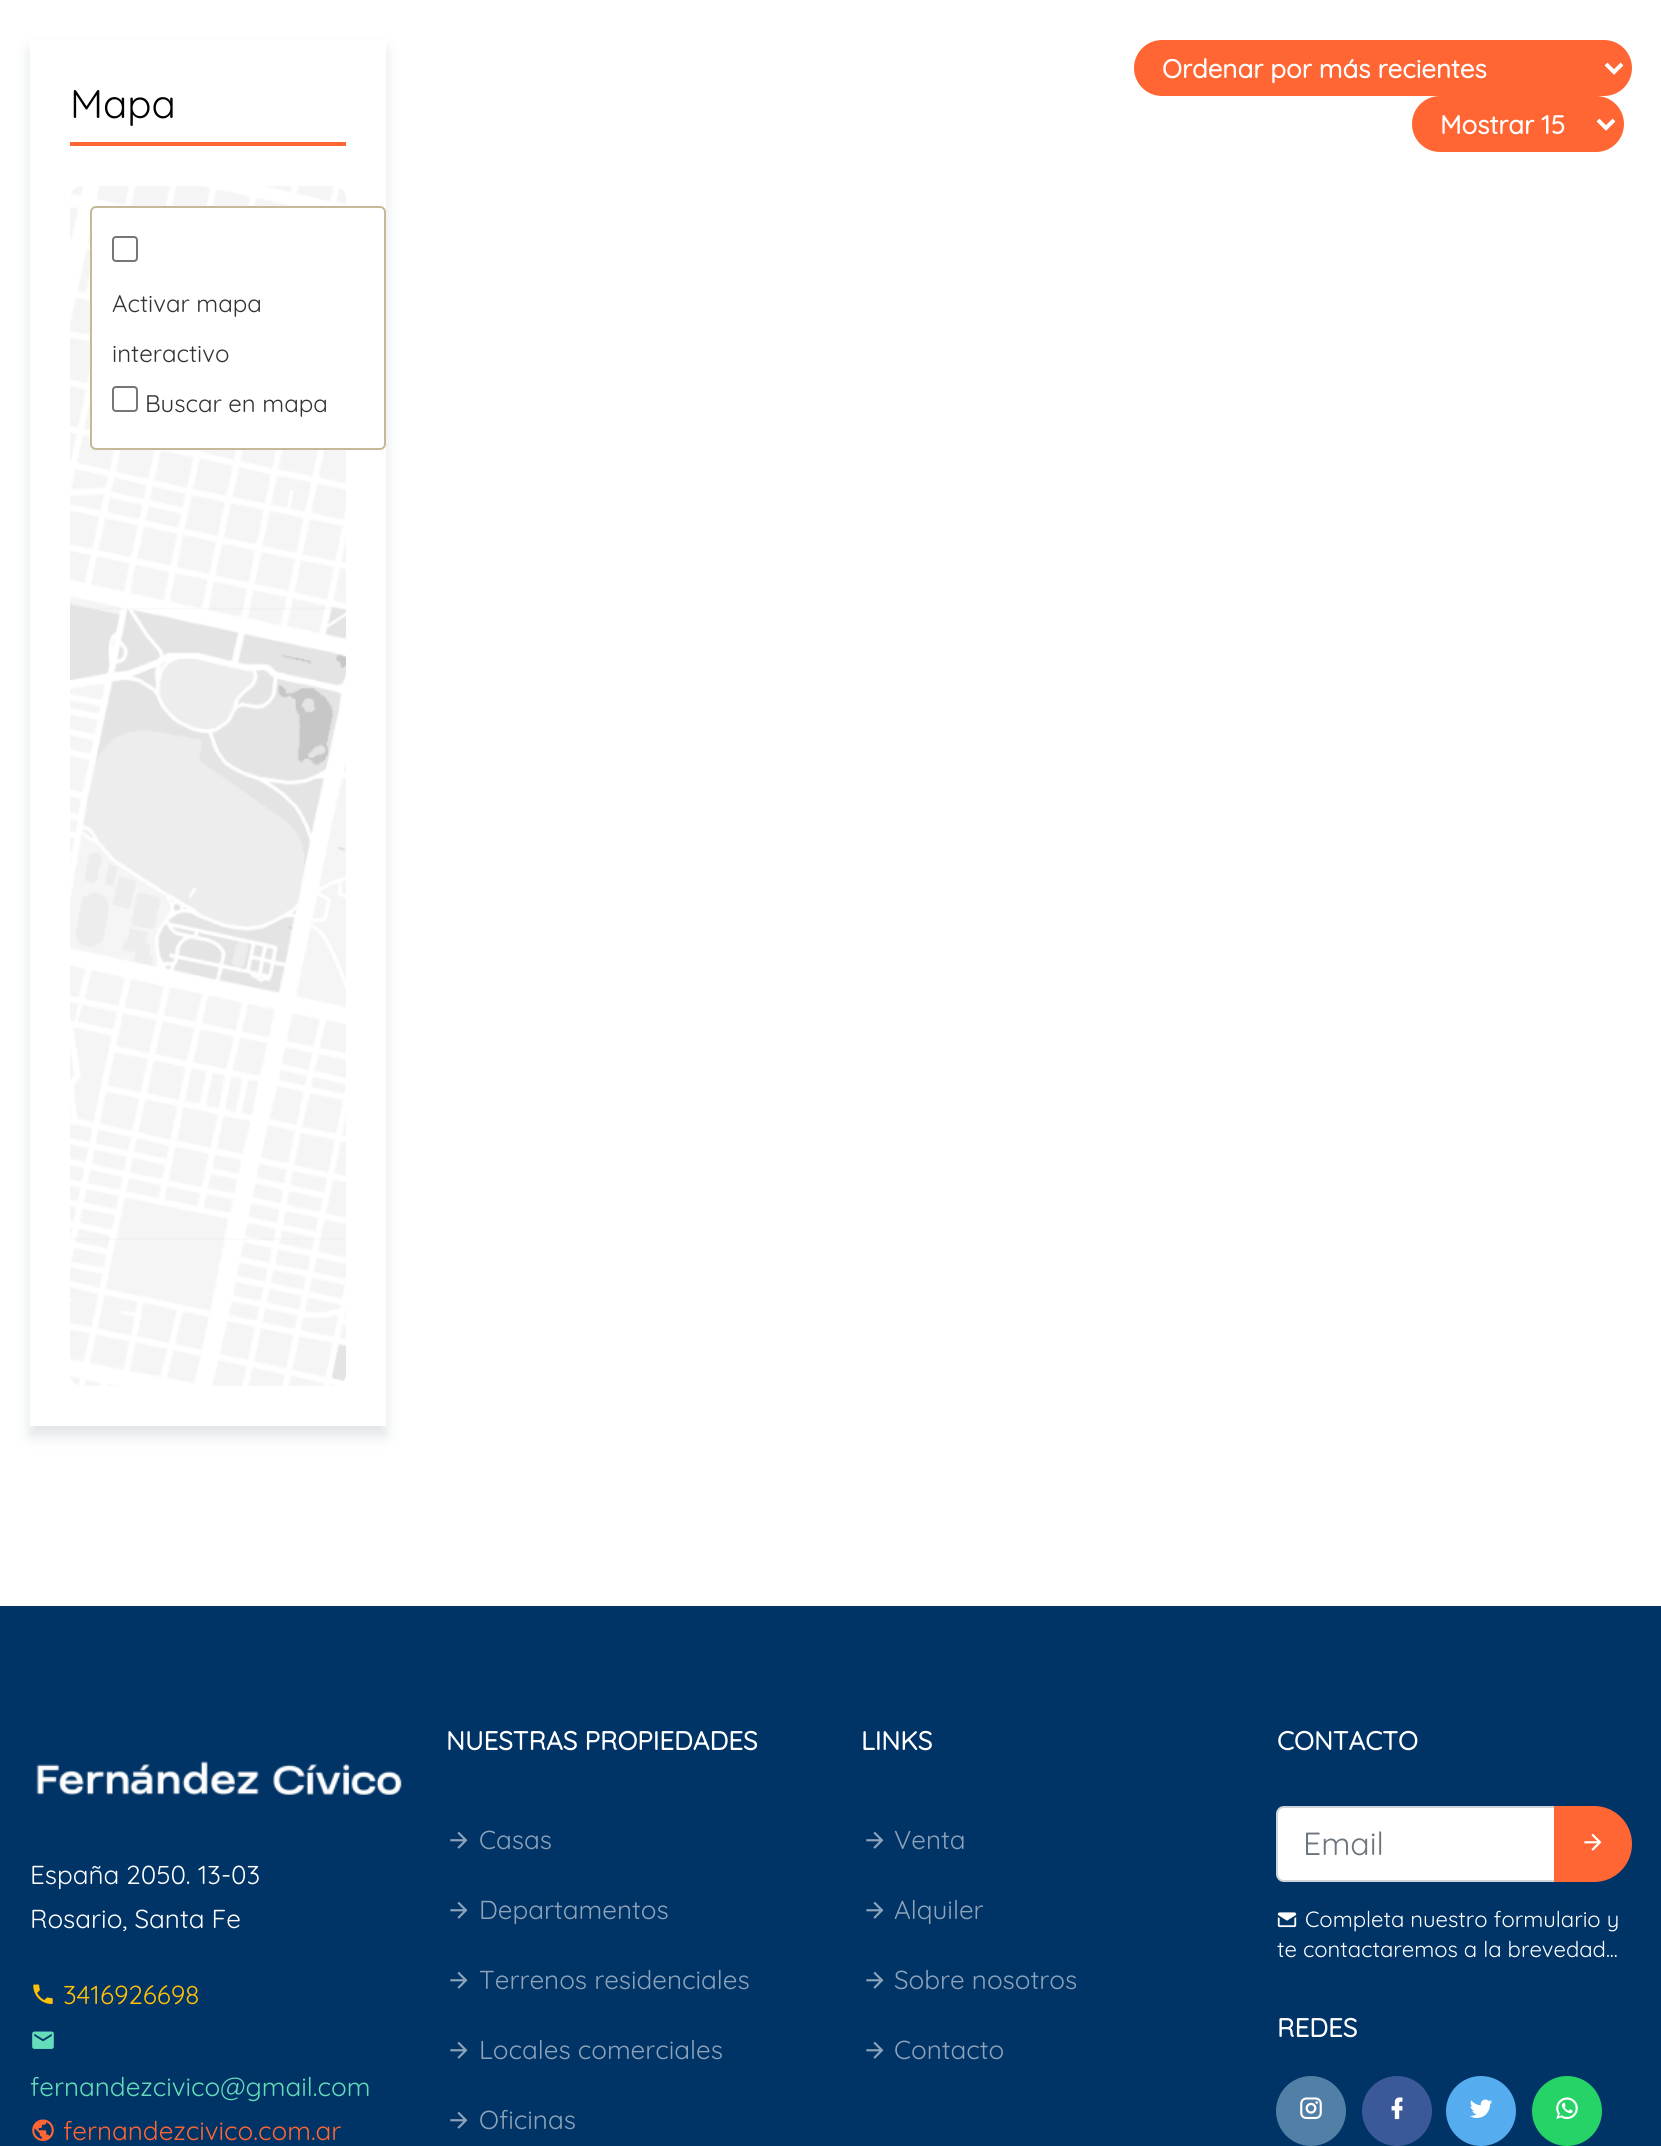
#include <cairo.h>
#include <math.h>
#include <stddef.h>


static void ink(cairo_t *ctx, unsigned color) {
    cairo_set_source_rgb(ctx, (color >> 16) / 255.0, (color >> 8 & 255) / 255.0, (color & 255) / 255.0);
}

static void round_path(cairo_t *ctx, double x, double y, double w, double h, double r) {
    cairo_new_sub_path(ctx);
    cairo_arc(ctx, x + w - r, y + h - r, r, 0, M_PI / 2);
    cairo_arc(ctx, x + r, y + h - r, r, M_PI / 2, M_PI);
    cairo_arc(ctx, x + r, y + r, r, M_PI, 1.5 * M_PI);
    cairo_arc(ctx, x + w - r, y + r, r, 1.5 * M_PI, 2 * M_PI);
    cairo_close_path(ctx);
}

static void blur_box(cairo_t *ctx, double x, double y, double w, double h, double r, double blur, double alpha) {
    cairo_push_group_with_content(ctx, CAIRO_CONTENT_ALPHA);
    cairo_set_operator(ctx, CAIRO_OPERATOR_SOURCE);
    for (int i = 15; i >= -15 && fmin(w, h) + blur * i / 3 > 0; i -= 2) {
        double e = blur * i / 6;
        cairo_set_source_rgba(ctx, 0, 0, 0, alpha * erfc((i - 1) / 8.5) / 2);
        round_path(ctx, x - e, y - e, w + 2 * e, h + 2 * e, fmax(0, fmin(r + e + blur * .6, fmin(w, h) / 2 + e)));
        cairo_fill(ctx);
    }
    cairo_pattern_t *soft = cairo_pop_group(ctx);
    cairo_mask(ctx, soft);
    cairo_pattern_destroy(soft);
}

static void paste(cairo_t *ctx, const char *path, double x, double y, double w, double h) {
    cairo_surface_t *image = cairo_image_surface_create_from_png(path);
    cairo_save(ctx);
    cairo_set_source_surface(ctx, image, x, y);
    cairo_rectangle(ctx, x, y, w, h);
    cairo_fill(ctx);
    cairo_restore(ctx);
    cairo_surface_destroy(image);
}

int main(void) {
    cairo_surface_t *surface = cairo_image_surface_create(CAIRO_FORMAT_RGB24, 1661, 2146);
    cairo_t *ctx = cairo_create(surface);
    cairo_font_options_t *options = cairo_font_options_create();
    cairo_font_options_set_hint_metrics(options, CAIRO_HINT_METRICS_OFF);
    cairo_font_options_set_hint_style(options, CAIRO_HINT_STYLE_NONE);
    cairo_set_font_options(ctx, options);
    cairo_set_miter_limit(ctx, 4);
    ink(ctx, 0xFFFFFF);
    cairo_paint(ctx);
    cairo_save(ctx);
    cairo_set_fill_rule(ctx, CAIRO_FILL_RULE_EVEN_ODD);
    cairo_new_path(ctx);
    cairo_move_to(ctx, 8, 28);
    cairo_line_to(ctx, 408, 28);
    cairo_line_to(ctx, 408, 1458);
    cairo_line_to(ctx, 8, 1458);
    cairo_close_path(ctx);
    cairo_move_to(ctx, 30, 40);
    cairo_line_to(ctx, 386, 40);
    cairo_line_to(ctx, 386, 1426);
    cairo_line_to(ctx, 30, 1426);
    cairo_close_path(ctx);
    cairo_clip(ctx);
    ink(ctx, 0xE0E5E8);
    blur_box(ctx, 30, 50, 356, 1386, 0, 7, 1);
    cairo_restore(ctx);
    ink(ctx, 0xFF6633);
    cairo_rectangle(ctx, 70, 142, 276, 4);
    cairo_fill(ctx);
    cairo_select_font_face(ctx, "Quicksand Light", CAIRO_FONT_SLANT_NORMAL, CAIRO_FONT_WEIGHT_NORMAL);
    cairo_set_font_size(ctx, 40);
    ink(ctx, 0x000000);
    cairo_move_to(ctx, 70, 118);
    cairo_show_text(ctx, "Mapa");
    paste(ctx, "media/1.png", 70, 186, 276, 1200);
    ink(ctx, 0xFFFFFF);
    round_path(ctx, 91, 207, 294, 242, 5);
    cairo_fill_preserve(ctx);
    ink(ctx, 0xC5B99A);
    cairo_stroke(ctx);
    round_path(ctx, 113, 237, 24, 24, 3);
    ink(ctx, 0x767676);
    cairo_stroke(ctx);
    cairo_set_font_size(ctx, 24);
    ink(ctx, 0x333333);
    cairo_move_to(ctx, 112, 312);
    cairo_show_text(ctx, "Activar mapa");
    cairo_move_to(ctx, 112, 362);
    cairo_show_text(ctx, "interactivo");
    round_path(ctx, 113, 387, 24, 24, 3);
    ink(ctx, 0x767676);
    cairo_stroke(ctx);
    ink(ctx, 0x333333);
    cairo_move_to(ctx, 145, 412);
    cairo_show_text(ctx, "Buscar en mapa");
    ink(ctx, 0xFF6633);
    round_path(ctx, 1135, 41, 496, 54, 27);
    cairo_fill_preserve(ctx);
    cairo_stroke(ctx);
    cairo_new_path(ctx);
    cairo_move_to(ctx, 1606, 64);
    cairo_line_to(ctx, 1614, 72);
    cairo_line_to(ctx, 1622, 64);
    ink(ctx, 0xFFFFFF);
    cairo_set_line_width(ctx, 4);
    cairo_stroke(ctx);
    cairo_select_font_face(ctx, "Quicksand", CAIRO_FONT_SLANT_NORMAL, CAIRO_FONT_WEIGHT_BOLD);
    cairo_set_font_size(ctx, 26);
    cairo_move_to(ctx, 1162, 78);
    cairo_show_text(ctx, "Ordenar por más recientes");
    ink(ctx, 0xFF6633);
    round_path(ctx, 1413, 97, 210, 54, 27);
    cairo_fill_preserve(ctx);
    cairo_set_line_width(ctx, 2);
    cairo_stroke(ctx);
    cairo_new_path(ctx);
    cairo_move_to(ctx, 1598, 120);
    cairo_line_to(ctx, 1606, 128);
    cairo_line_to(ctx, 1614, 120);
    ink(ctx, 0xFFFFFF);
    cairo_set_line_width(ctx, 4);
    cairo_stroke(ctx);
    cairo_move_to(ctx, 1440, 134);
    cairo_show_text(ctx, "Mostrar 15");
    ink(ctx, 0x003366);
    cairo_rectangle(ctx, 0, 1606, 1661, 540);
    cairo_fill(ctx);
    paste(ctx, "media/2.png", 36, 1761, 366, 34);
    cairo_select_font_face(ctx, "Quicksand Light", CAIRO_FONT_SLANT_NORMAL, CAIRO_FONT_WEIGHT_NORMAL);
    ink(ctx, 0xFFFFFF);
    cairo_move_to(ctx, 30, 1884);
    cairo_show_text(ctx, "España 2050. 13-03");
    cairo_move_to(ctx, 30, 1928);
    cairo_show_text(ctx, "Rosario, Santa Fe");
    paste(ctx, "media/3.png", 33, 1984, 20, 20);
    ink(ctx, 0xFFC107);
    cairo_move_to(ctx, 63, 2004);
    cairo_show_text(ctx, "3416926698");
    paste(ctx, "media/4.png", 32, 2031, 22, 18);
    ink(ctx, 0x64DDBA);
    cairo_move_to(ctx, 30, 2096);
    cairo_show_text(ctx, "fernandezcivico@gmail.com");
    paste(ctx, "media/5.png", 32, 2119, 22, 22);
    ink(ctx, 0xFF6633);
    cairo_move_to(ctx, 63, 2140);
    cairo_show_text(ctx, "fernandezcivico.com.ar");
    cairo_select_font_face(ctx, "Quicksand", CAIRO_FONT_SLANT_NORMAL, CAIRO_FONT_WEIGHT_BOLD);
    ink(ctx, 0xFFFFFF);
    cairo_move_to(ctx, 446, 1750);
    cairo_show_text(ctx, "NUESTRAS PROPIEDADES");
    paste(ctx, "media/6.png", 450, 1831, 18, 18);
    cairo_select_font_face(ctx, "Quicksand Light", CAIRO_FONT_SLANT_NORMAL, CAIRO_FONT_WEIGHT_NORMAL);
    ink(ctx, 0x8CA3BA);
    cairo_move_to(ctx, 479, 1849);
    cairo_show_text(ctx, "Casas");
    paste(ctx, "media/6.png", 450, 1901, 18, 18);
    cairo_move_to(ctx, 479, 1919);
    cairo_show_text(ctx, "Departamentos");
    paste(ctx, "media/6.png", 450, 1971, 18, 18);
    cairo_move_to(ctx, 479, 1989);
    cairo_show_text(ctx, "Terrenos residenciales");
    paste(ctx, "media/6.png", 450, 2041, 18, 18);
    cairo_move_to(ctx, 479, 2059);
    cairo_show_text(ctx, "Locales comerciales");
    paste(ctx, "media/6.png", 450, 2111, 18, 18);
    cairo_move_to(ctx, 479, 2129);
    cairo_show_text(ctx, "Oficinas");
    cairo_select_font_face(ctx, "Quicksand", CAIRO_FONT_SLANT_NORMAL, CAIRO_FONT_WEIGHT_BOLD);
    ink(ctx, 0xFFFFFF);
    cairo_move_to(ctx, 861, 1750);
    cairo_show_text(ctx, "LINKS");
    paste(ctx, "media/6.png", 866, 1831, 18, 18);
    cairo_select_font_face(ctx, "Quicksand Light", CAIRO_FONT_SLANT_NORMAL, CAIRO_FONT_WEIGHT_NORMAL);
    ink(ctx, 0x8CA3BA);
    cairo_move_to(ctx, 894, 1849);
    cairo_show_text(ctx, "Venta");
    paste(ctx, "media/6.png", 866, 1901, 18, 18);
    cairo_move_to(ctx, 894, 1919);
    cairo_show_text(ctx, "Alquiler");
    paste(ctx, "media/6.png", 866, 1971, 18, 18);
    cairo_move_to(ctx, 894, 1989);
    cairo_show_text(ctx, "Sobre nosotros");
    paste(ctx, "media/6.png", 866, 2041, 18, 18);
    cairo_move_to(ctx, 894, 2059);
    cairo_show_text(ctx, "Contacto");
    cairo_select_font_face(ctx, "Quicksand", CAIRO_FONT_SLANT_NORMAL, CAIRO_FONT_WEIGHT_BOLD);
    ink(ctx, 0xFFFFFF);
    cairo_move_to(ctx, 1277, 1750);
    cairo_show_text(ctx, "CONTACTO");
    cairo_new_path(ctx);
    cairo_move_to(ctx, 1284, 1807);
    cairo_line_to(ctx, 1555, 1807);
    cairo_line_to(ctx, 1555, 1881);
    cairo_line_to(ctx, 1284, 1881);
    cairo_curve_to(ctx, 1280, 1881, 1277, 1878, 1277, 1874);
    cairo_line_to(ctx, 1277, 1814);
    cairo_curve_to(ctx, 1277, 1810, 1280, 1807, 1284, 1807);
    cairo_close_path(ctx);
    cairo_fill_preserve(ctx);
    ink(ctx, 0xCED4DA);
    cairo_set_line_width(ctx, 2);
    cairo_stroke(ctx);
    cairo_select_font_face(ctx, "Quicksand Light", CAIRO_FONT_SLANT_NORMAL, CAIRO_FONT_WEIGHT_NORMAL);
    cairo_set_font_size(ctx, 32);
    ink(ctx, 0x6C757D);
    cairo_move_to(ctx, 1303, 1855);
    cairo_show_text(ctx, "Email");
    ink(ctx, 0xFF6633);
    cairo_new_path(ctx);
    cairo_move_to(ctx, 1555, 1807);
    cairo_line_to(ctx, 1594, 1807);
    cairo_curve_to(ctx, 1614.5, 1807, 1631, 1823.5, 1631, 1844);
    cairo_curve_to(ctx, 1631, 1864.5, 1614.5, 1881, 1594, 1881);
    cairo_line_to(ctx, 1555, 1881);
    cairo_close_path(ctx);
    cairo_fill_preserve(ctx);
    cairo_stroke(ctx);
    paste(ctx, "media/7.png", 1584, 1833, 18, 18);
    paste(ctx, "media/8.png", 1277, 1912, 20, 16);
    cairo_set_font_size(ctx, 22);
    ink(ctx, 0xFFFFFF);
    cairo_move_to(ctx, 1305, 1927);
    cairo_show_text(ctx, "Completa nuestro formulario y");
    cairo_move_to(ctx, 1277, 1957);
    cairo_show_text(ctx, "te contactaremos a la brevedad...");
    cairo_select_font_face(ctx, "Quicksand", CAIRO_FONT_SLANT_NORMAL, CAIRO_FONT_WEIGHT_BOLD);
    cairo_set_font_size(ctx, 26);
    cairo_move_to(ctx, 1277, 2037);
    cairo_show_text(ctx, "REDES");
    ink(ctx, 0x517FA6);
    cairo_new_path(ctx);
    cairo_arc(ctx, 1311, 2111, 35, 0, 2 * M_PI);
    cairo_fill(ctx);
    paste(ctx, "media/9.png", 1300, 2097, 22, 23);
    ink(ctx, 0x3B5999);
    cairo_arc(ctx, 1397, 2111, 35, 0, 2 * M_PI);
    cairo_fill(ctx);
    paste(ctx, "media/10.png", 1391, 2097, 12, 23);
    ink(ctx, 0x55ACEE);
    cairo_arc(ctx, 1481, 2111, 35, 0, 2 * M_PI);
    cairo_fill(ctx);
    paste(ctx, "media/11.png", 1470, 2099, 23, 19);
    ink(ctx, 0x25D366);
    cairo_arc(ctx, 1567, 2111, 35, 0, 2 * M_PI);
    cairo_fill(ctx);
    paste(ctx, "media/12.png", 1556, 2097, 22, 23);
    cairo_surface_write_to_png(surface, "image.png");
    cairo_font_options_destroy(options);
    cairo_destroy(ctx);
    cairo_surface_destroy(surface);
    return 0;
}
